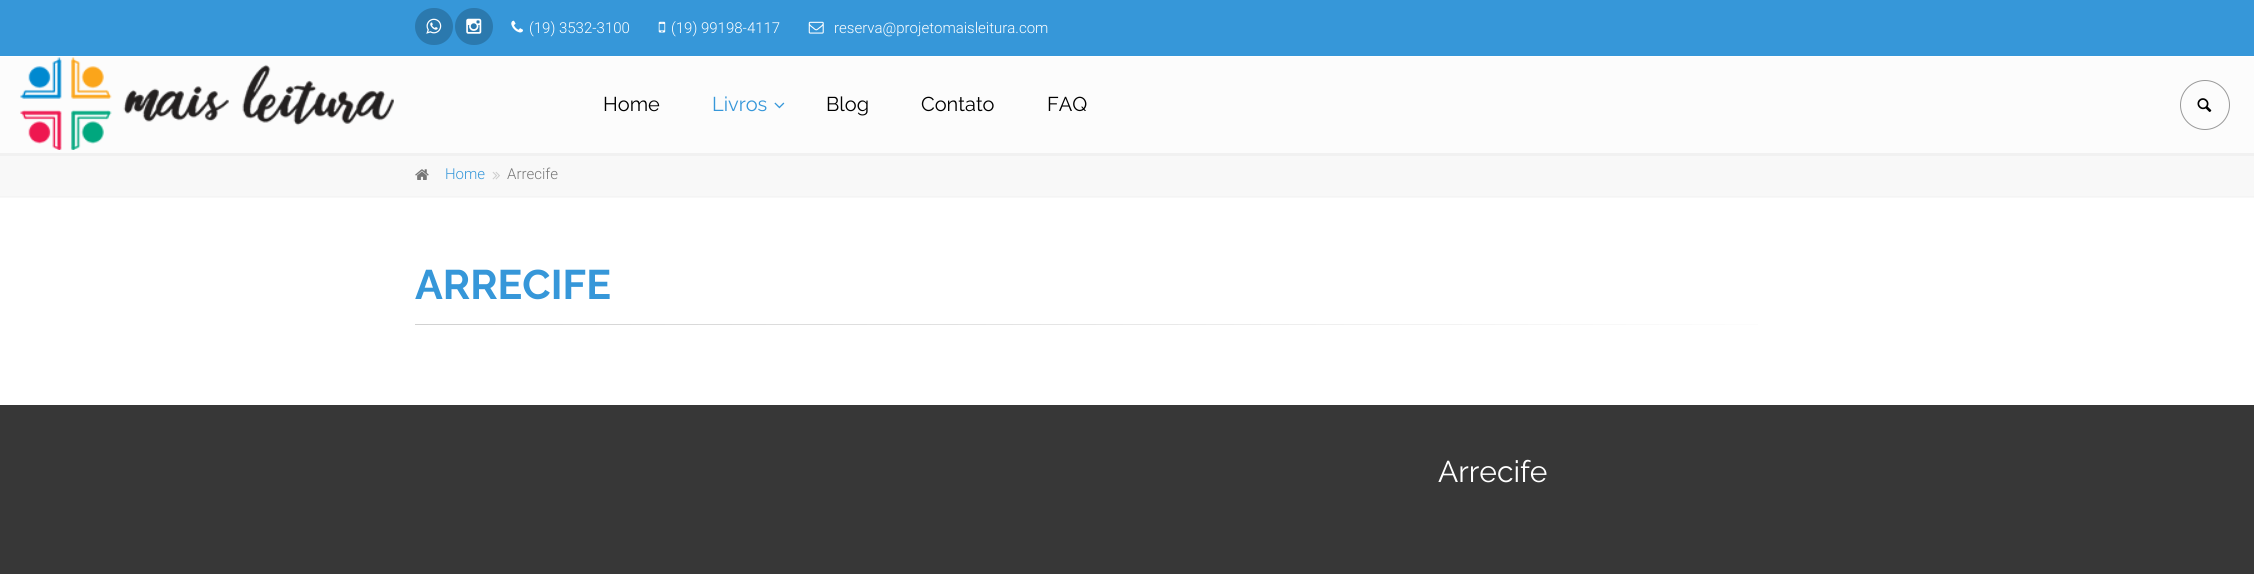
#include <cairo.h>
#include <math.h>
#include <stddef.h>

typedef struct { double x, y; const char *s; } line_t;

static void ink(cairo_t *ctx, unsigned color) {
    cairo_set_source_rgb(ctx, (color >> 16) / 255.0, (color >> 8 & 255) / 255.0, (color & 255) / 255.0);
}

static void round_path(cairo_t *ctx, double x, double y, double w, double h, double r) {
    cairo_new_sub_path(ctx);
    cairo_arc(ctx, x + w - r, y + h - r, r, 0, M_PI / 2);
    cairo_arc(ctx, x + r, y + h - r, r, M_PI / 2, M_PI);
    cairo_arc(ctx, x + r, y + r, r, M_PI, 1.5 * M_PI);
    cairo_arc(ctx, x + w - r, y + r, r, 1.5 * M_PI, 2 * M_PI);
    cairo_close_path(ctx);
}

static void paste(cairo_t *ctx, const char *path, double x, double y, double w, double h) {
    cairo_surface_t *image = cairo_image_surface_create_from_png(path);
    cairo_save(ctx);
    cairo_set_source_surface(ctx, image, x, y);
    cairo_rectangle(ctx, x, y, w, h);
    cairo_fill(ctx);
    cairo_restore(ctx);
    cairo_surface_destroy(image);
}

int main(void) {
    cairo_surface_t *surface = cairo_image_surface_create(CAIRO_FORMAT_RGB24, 2254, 574);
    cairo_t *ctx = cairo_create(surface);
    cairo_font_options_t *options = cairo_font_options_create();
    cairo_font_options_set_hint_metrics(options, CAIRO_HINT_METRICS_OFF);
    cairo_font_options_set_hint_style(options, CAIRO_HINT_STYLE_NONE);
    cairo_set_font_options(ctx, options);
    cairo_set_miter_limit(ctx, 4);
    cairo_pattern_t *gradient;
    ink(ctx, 0xFFFFFF);
    cairo_paint(ctx);
    ink(ctx, 0x3697D9);
    cairo_rectangle(ctx, 0, 0, 2254, 56);
    cairo_fill(ctx);
    ink(ctx, 0x2B79AE);
    round_path(ctx, 415, 8, 38, 37, 18.5);
    cairo_fill(ctx);
    paste(ctx, "media/1.png", 426, 18, 16, 16);
    round_path(ctx, 455, 8, 38, 37, 18.5);
    cairo_fill(ctx);
    paste(ctx, "media/2.png", 466, 18, 16, 16);
    paste(ctx, "media/3.png", 511, 20, 12, 13);
    cairo_select_font_face(ctx, "Roboto Light", CAIRO_FONT_SLANT_NORMAL, CAIRO_FONT_WEIGHT_NORMAL);
    cairo_set_font_size(ctx, 15);
    ink(ctx, 0xFFFFFF);
    cairo_move_to(ctx, 529, 33);
    cairo_show_text(ctx, "(19) 3532-3100");
    paste(ctx, "media/4.png", 658, 21, 8, 12);
    cairo_move_to(ctx, 671, 33);
    cairo_show_text(ctx, "(19) 99198-4117");
    paste(ctx, "media/5.png", 808, 21, 16, 13);
    cairo_move_to(ctx, 834, 33);
    cairo_show_text(ctx, "reserva@projetomaisleitura.com");
    ink(ctx, 0xFCFCFC);
    cairo_rectangle(ctx, 0, 57, 2254, 96);
    cairo_fill(ctx);
    ink(ctx, 0xF1F1F1);
    cairo_rectangle(ctx, 0, 153, 2254, 3);
    cairo_fill(ctx);
    paste(ctx, "media/6.png", 20, 57, 374, 93);
    cairo_select_font_face(ctx, "Raleway", CAIRO_FONT_SLANT_NORMAL, CAIRO_FONT_WEIGHT_NORMAL);
    cairo_set_font_size(ctx, 20);
    ink(ctx, 0x000000);
    cairo_move_to(ctx, 603, 111);
    cairo_show_text(ctx, "Home");
    ink(ctx, 0x3697D9);
    cairo_move_to(ctx, 712, 111);
    cairo_show_text(ctx, "Livros");
    paste(ctx, "media/7.png", 774, 102, 11, 7);
    ink(ctx, 0x000000);
    {
        static const line_t items[] = {
            {826, 111, "Blog"},
            {921, 111, "Contato"},
            {1047, 111, "FAQ"},
        };
        for (size_t i = 0; i < sizeof items / sizeof *items; i++) {
            cairo_move_to(ctx, items[i].x, items[i].y);
            cairo_show_text(ctx, items[i].s);
        }
    }
    cairo_new_path(ctx);
    cairo_arc(ctx, 2205, 105, 24.5, 0, 2 * M_PI);
    ink(ctx, 0x999999);
    cairo_set_line_width(ctx, 1);
    cairo_stroke(ctx);
    paste(ctx, "media/8.png", 2197, 98, 15, 14);
    ink(ctx, 0xF8F8F8);
    cairo_rectangle(ctx, 0, 156, 2254, 42);
    cairo_fill(ctx);
    ink(ctx, 0xF4F4F4);
    cairo_rectangle(ctx, 0, 196, 2254, 1);
    cairo_fill(ctx);
    paste(ctx, "media/9.png", 415, 169, 14, 11);
    cairo_select_font_face(ctx, "Roboto Light", CAIRO_FONT_SLANT_NORMAL, CAIRO_FONT_WEIGHT_NORMAL);
    cairo_set_font_size(ctx, 15);
    ink(ctx, 0x3697D9);
    cairo_move_to(ctx, 445, 179);
    cairo_show_text(ctx, "Home");
    paste(ctx, "media/10.png", 492, 171, 8, 9);
    ink(ctx, 0x777777);
    cairo_move_to(ctx, 507, 179);
    cairo_show_text(ctx, "Arrecife");
    cairo_select_font_face(ctx, "Raleway", CAIRO_FONT_SLANT_NORMAL, CAIRO_FONT_WEIGHT_BOLD);
    cairo_set_font_size(ctx, 41.25);
    ink(ctx, 0x3697D9);
    cairo_move_to(ctx, 415, 299);
    cairo_show_text(ctx, "ARRECIFE");
    gradient = cairo_pattern_create_linear(415, 324, 1840, 324);
    cairo_pattern_add_color_stop_rgba(gradient, 0, 0.82, 0.82, 0.82, 1);
    cairo_pattern_add_color_stop_rgba(gradient, 0.35, 0.878, 0.878, 0.878, 1);
    cairo_pattern_add_color_stop_rgba(gradient, 0.7, 0.949, 0.949, 0.949, 1);
    cairo_pattern_add_color_stop_rgba(gradient, 1, 1, 1, 1, 1);
    cairo_set_source(ctx, gradient);
    cairo_pattern_destroy(gradient);
    cairo_rectangle(ctx, 415, 324, 1343, 1);
    cairo_fill(ctx);
    ink(ctx, 0x373737);
    cairo_rectangle(ctx, 0, 405, 2254, 169);
    cairo_fill(ctx);
    cairo_select_font_face(ctx, "Raleway", CAIRO_FONT_SLANT_NORMAL, CAIRO_FONT_WEIGHT_NORMAL);
    cairo_set_font_size(ctx, 30);
    ink(ctx, 0xFFFFFF);
    cairo_move_to(ctx, 1438, 482);
    cairo_show_text(ctx, "Arrecife");
    cairo_surface_write_to_png(surface, "image.png");
    cairo_font_options_destroy(options);
    cairo_destroy(ctx);
    cairo_surface_destroy(surface);
    return 0;
}
